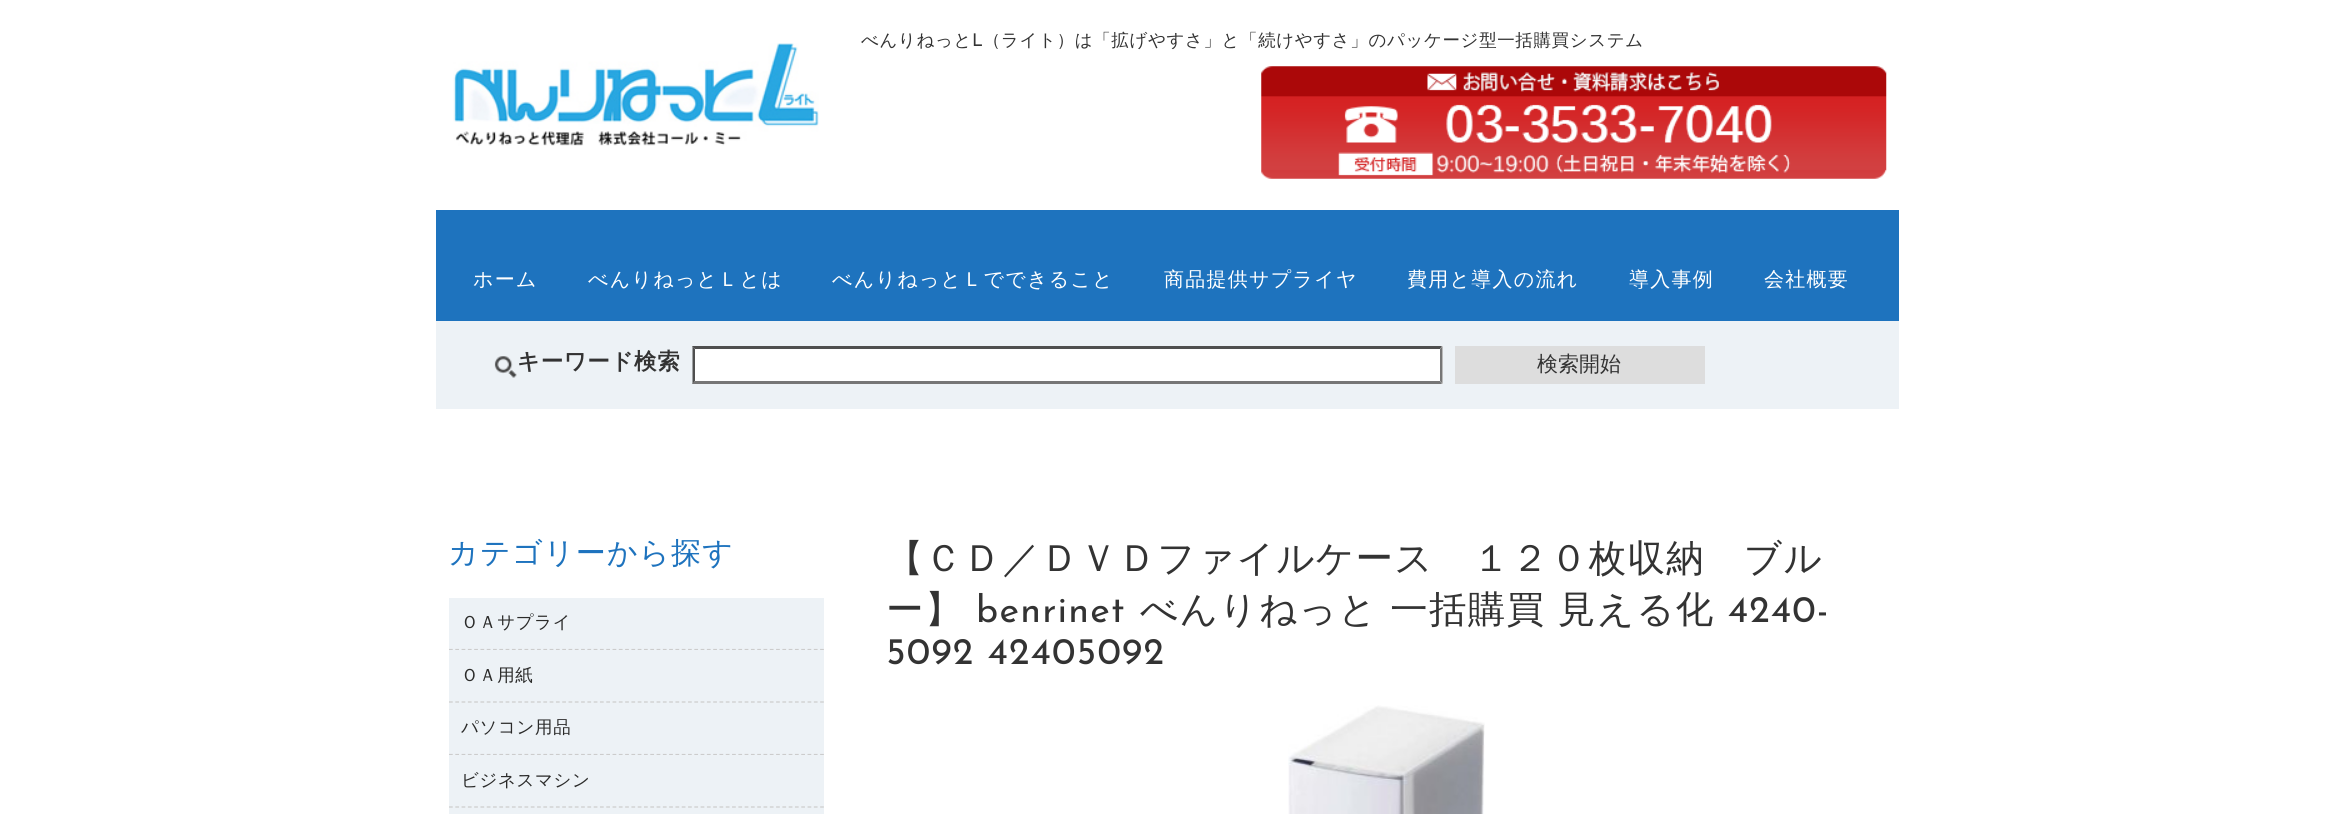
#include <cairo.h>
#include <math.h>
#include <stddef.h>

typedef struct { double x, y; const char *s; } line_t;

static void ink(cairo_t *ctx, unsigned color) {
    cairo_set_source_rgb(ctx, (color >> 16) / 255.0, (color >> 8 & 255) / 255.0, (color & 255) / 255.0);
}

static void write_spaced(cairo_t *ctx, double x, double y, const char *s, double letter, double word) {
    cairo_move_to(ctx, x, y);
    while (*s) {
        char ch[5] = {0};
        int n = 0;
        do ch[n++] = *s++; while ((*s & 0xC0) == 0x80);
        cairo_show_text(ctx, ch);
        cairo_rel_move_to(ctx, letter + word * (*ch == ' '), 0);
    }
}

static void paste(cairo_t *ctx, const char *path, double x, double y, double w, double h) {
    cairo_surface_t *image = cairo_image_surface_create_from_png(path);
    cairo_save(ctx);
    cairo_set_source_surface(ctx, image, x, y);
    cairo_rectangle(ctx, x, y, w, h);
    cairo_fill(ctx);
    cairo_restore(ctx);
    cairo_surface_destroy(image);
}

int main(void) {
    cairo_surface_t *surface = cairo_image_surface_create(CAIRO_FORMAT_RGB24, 2333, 814);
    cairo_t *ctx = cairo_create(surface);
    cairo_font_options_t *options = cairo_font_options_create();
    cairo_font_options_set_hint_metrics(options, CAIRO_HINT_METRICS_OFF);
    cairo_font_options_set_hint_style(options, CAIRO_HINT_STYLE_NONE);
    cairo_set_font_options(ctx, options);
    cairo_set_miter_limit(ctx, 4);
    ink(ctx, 0xFFFFFF);
    cairo_paint(ctx);
    cairo_select_font_face(ctx, "WenQuanYi Zen Hei Medium", CAIRO_FONT_SLANT_NORMAL, CAIRO_FONT_WEIGHT_NORMAL);
    cairo_set_font_size(ctx, 17.5);
    ink(ctx, 0x333333);
    write_spaced(ctx, 861, 46, "べんりねっと", 0.6, 0);
    cairo_select_font_face(ctx, "Josefin Sans Thin", CAIRO_FONT_SLANT_NORMAL, CAIRO_FONT_WEIGHT_NORMAL);
    write_spaced(ctx, 972, 46, "L", 0.6, 0);
    cairo_select_font_face(ctx, "WenQuanYi Zen Hei Medium", CAIRO_FONT_SLANT_NORMAL, CAIRO_FONT_WEIGHT_NORMAL);
    write_spaced(ctx, 983, 46, "（ライト）は「拡げやすさ」と「続けやすさ」のパッケージ型一括購買システム", 0.6, 0);
    paste(ctx, "media/1.png", 453, 43, 366, 103);
    paste(ctx, "media/2.png", 1261, 66, 626, 113);
    ink(ctx, 0x1E73BE);
    cairo_rectangle(ctx, 436, 210, 1463, 111);
    cairo_fill(ctx);
    cairo_set_font_size(ctx, 20);
    ink(ctx, 0xFFFFFF);
    {
        static const line_t items[] = {
            {473, 286, "ホーム"},
            {588, 286, "べんりねっとＬとは"},
            {832, 286, "べんりねっとＬでできること"},
            {1164, 286, "商品提供サプライヤ"},
            {1407, 286, "費用と導入の流れ"},
            {1629, 286, "導入事例"},
            {1764, 286, "会社概要"},
        };
        for (size_t i = 0; i < sizeof items / sizeof *items; i++) {
            write_spaced(ctx, items[i].x, items[i].y, items[i].s, 1.25, 0);
        }
    }
    ink(ctx, 0xEDF2F6);
    cairo_rectangle(ctx, 436, 321, 1463, 88);
    cairo_fill(ctx);
    paste(ctx, "media/3.png", 494, 356, 23, 22);
    cairo_select_font_face(ctx, "WenQuanYi Zen Hei", CAIRO_FONT_SLANT_NORMAL, CAIRO_FONT_WEIGHT_BOLD);
    cairo_set_font_size(ctx, 22.5);
    ink(ctx, 0x333333);
    write_spaced(ctx, 517, 369, "キーワード検索", 0.6, 0);
    ink(ctx, 0xFFFFFF);
    cairo_rectangle(ctx, 693, 346, 750, 38);
    cairo_fill(ctx);
    ink(ctx, 0x4F4F4F);
    cairo_new_path(ctx);
    cairo_move_to(ctx, 692, 346);
    cairo_line_to(ctx, 1442, 346);
    cairo_line_to(ctx, 1440, 349);
    cairo_line_to(ctx, 695, 349);
    cairo_close_path(ctx);
    cairo_fill(ctx);
    ink(ctx, 0x767676);
    cairo_new_path(ctx);
    cairo_move_to(ctx, 1442.5, 346);
    cairo_line_to(ctx, 1442.5, 384);
    cairo_line_to(ctx, 1440, 381);
    cairo_line_to(ctx, 1440, 349);
    cairo_close_path(ctx);
    cairo_fill(ctx);
    cairo_new_path(ctx);
    cairo_move_to(ctx, 1442, 384);
    cairo_line_to(ctx, 692, 384);
    cairo_line_to(ctx, 695, 381);
    cairo_line_to(ctx, 1440, 381);
    cairo_close_path(ctx);
    cairo_fill(ctx);
    ink(ctx, 0x4F4F4F);
    cairo_new_path(ctx);
    cairo_move_to(ctx, 692.5, 384);
    cairo_line_to(ctx, 692.5, 346);
    cairo_line_to(ctx, 695, 349);
    cairo_line_to(ctx, 695, 381);
    cairo_close_path(ctx);
    cairo_fill(ctx);
    ink(ctx, 0xDDDDDD);
    cairo_rectangle(ctx, 1455, 346, 250, 38);
    cairo_fill(ctx);
    cairo_select_font_face(ctx, "WenQuanYi Zen Hei Medium", CAIRO_FONT_SLANT_NORMAL, CAIRO_FONT_WEIGHT_NORMAL);
    cairo_set_font_size(ctx, 21);
    ink(ctx, 0x333333);
    cairo_move_to(ctx, 1537, 371);
    cairo_show_text(ctx, "検索開始");
    cairo_set_font_size(ctx, 30);
    ink(ctx, 0x1E73BE);
    write_spaced(ctx, 448, 563, "カテゴリーから探す", 1.25, 0);
    ink(ctx, 0xEDF2F6);
    cairo_rectangle(ctx, 449, 598, 375, 52);
    cairo_fill(ctx);
    cairo_new_path(ctx);
    cairo_move_to(ctx, 449, 649.5);
    cairo_line_to(ctx, 824, 649.5);
    ink(ctx, 0xCCCCCC);
    cairo_set_line_width(ctx, 1.2);
    cairo_set_dash(ctx, (double[]){3.75, 2.54}, 2, 0);
    cairo_stroke(ctx);
    cairo_set_font_size(ctx, 17.5);
    ink(ctx, 0x2B2B2A);
    write_spaced(ctx, 461, 628, "ＯＡサプライ", 0.6, 0);
    ink(ctx, 0xEDF2F6);
    cairo_rectangle(ctx, 449, 650, 375, 105);
    cairo_fill(ctx);
    cairo_new_path(ctx);
    cairo_move_to(ctx, 449, 702);
    cairo_line_to(ctx, 824, 702);
    ink(ctx, 0xCCCCCC);
    cairo_stroke(ctx);
    ink(ctx, 0x2B2B2A);
    write_spaced(ctx, 461, 681, "ＯＡ用紙", 0.6, 0);
    cairo_new_path(ctx);
    cairo_move_to(ctx, 449, 754.5);
    cairo_line_to(ctx, 824, 754.5);
    ink(ctx, 0xCCCCCC);
    cairo_stroke(ctx);
    ink(ctx, 0x2B2B2A);
    write_spaced(ctx, 461, 733, "パソコン用品", 0.6, 0);
    ink(ctx, 0xEDF2F6);
    cairo_rectangle(ctx, 449, 755, 375, 59);
    cairo_fill(ctx);
    cairo_new_path(ctx);
    cairo_move_to(ctx, 449, 807);
    cairo_line_to(ctx, 824, 807);
    ink(ctx, 0xCCCCCC);
    cairo_stroke(ctx);
    ink(ctx, 0x2B2B2A);
    write_spaced(ctx, 461, 786, "ビジネスマシン", 0.6, 0);
    cairo_set_font_size(ctx, 37.5);
    ink(ctx, 0x333333);
    write_spaced(ctx, 886, 571, "【ＣＤ／ＤＶＤファイルケース　１２０枚収納　ブル", 1.25, 0);
    write_spaced(ctx, 886, 622, "ー】", 1.25, 0);
    cairo_select_font_face(ctx, "Josefin Sans Thin", CAIRO_FONT_SLANT_NORMAL, CAIRO_FONT_WEIGHT_NORMAL);
    write_spaced(ctx, 976, 622, "benrinet", 1.25, 0);
    cairo_select_font_face(ctx, "WenQuanYi Zen Hei Medium", CAIRO_FONT_SLANT_NORMAL, CAIRO_FONT_WEIGHT_NORMAL);
    write_spaced(ctx, 1140, 622, "べんりねっと 一括購買 見える化", 1.25, 0);
    cairo_select_font_face(ctx, "Josefin Sans Thin", CAIRO_FONT_SLANT_NORMAL, CAIRO_FONT_WEIGHT_NORMAL);
    write_spaced(ctx, 1728, 622, "4240-", 1.25, 0);
    write_spaced(ctx, 886, 664, "5092 42405092", 1.25, 0);
    paste(ctx, "media/4.png", 1288, 705, 197, 109);
    cairo_surface_write_to_png(surface, "image.png");
    cairo_font_options_destroy(options);
    cairo_destroy(ctx);
    cairo_surface_destroy(surface);
    return 0;
}
